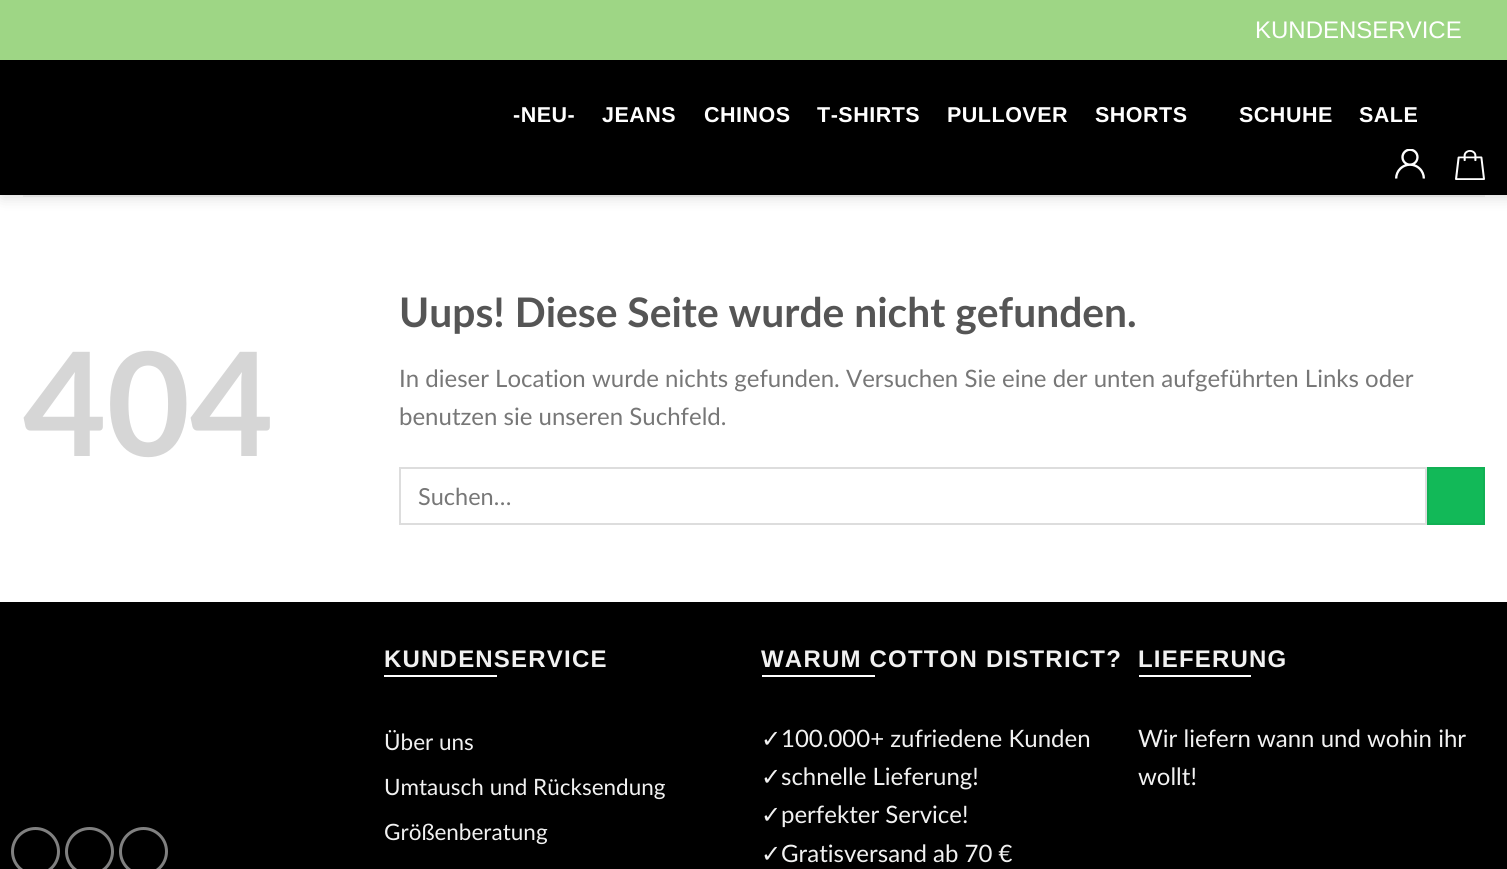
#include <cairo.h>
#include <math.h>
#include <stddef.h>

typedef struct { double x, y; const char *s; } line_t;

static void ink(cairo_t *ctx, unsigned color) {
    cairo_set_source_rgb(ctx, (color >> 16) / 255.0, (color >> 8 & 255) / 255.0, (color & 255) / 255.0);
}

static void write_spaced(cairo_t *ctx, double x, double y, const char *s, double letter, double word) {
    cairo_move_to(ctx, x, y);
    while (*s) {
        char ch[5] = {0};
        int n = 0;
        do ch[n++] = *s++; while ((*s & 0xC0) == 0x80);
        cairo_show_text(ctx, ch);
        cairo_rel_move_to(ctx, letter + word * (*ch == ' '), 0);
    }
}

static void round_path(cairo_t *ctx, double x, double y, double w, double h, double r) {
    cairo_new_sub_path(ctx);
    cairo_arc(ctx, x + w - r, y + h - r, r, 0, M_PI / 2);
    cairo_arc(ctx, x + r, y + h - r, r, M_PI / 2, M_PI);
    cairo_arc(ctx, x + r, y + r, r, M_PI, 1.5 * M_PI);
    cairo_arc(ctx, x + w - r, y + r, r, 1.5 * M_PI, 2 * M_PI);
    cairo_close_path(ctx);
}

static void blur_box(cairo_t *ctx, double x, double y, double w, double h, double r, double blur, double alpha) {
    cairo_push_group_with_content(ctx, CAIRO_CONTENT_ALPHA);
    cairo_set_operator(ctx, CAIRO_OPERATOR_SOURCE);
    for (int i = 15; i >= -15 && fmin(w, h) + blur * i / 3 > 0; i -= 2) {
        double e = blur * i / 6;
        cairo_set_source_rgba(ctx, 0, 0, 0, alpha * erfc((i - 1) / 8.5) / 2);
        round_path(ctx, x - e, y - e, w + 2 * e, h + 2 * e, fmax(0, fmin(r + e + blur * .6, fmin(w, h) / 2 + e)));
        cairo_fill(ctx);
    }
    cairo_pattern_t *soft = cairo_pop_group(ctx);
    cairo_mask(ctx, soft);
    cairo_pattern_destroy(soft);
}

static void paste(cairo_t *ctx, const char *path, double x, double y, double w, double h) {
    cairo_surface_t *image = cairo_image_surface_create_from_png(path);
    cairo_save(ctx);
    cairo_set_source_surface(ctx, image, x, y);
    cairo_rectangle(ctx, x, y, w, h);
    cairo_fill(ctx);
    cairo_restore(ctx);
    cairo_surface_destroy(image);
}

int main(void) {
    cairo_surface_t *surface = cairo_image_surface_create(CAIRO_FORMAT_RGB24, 1507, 869);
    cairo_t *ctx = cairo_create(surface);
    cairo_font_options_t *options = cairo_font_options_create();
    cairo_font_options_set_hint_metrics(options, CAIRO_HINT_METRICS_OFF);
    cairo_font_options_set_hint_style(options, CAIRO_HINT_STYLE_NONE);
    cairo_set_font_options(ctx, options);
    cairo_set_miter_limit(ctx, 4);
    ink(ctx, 0xFFFFFF);
    cairo_paint(ctx);
    ink(ctx, 0x000000);
    blur_box(ctx, 2, 2, 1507, 195, 0, 7.5, 0.15);
    ink(ctx, 0x9ED685);
    cairo_rectangle(ctx, 0, 0, 1507, 60);
    cairo_fill(ctx);
    cairo_select_font_face(ctx, "Liberation Sans", CAIRO_FONT_SLANT_NORMAL, CAIRO_FONT_WEIGHT_NORMAL);
    cairo_set_font_size(ctx, 24);
    ink(ctx, 0xFFFFFF);
    cairo_move_to(ctx, 1255, 38);
    cairo_show_text(ctx, "KUNDENSERVICE");
    ink(ctx, 0x000000);
    cairo_rectangle(ctx, 0, 60, 1507, 135);
    cairo_fill(ctx);
    cairo_select_font_face(ctx, "Liberation Sans", CAIRO_FONT_SLANT_NORMAL, CAIRO_FONT_WEIGHT_BOLD);
    cairo_set_font_size(ctx, 21.5);
    ink(ctx, 0xFFFFFF);
    {
        static const line_t items[] = {
            {513, 122, "-NEU-"},
            {602, 122, "JEANS"},
            {704, 122, "CHINOS"},
            {817, 122, "T-SHIRTS"},
            {947, 122, "PULLOVER"},
            {1095, 122, "SHORTS"},
            {1239, 122, "SCHUHE"},
            {1359, 122, "SALE"},
        };
        for (size_t i = 0; i < sizeof items / sizeof *items; i++) {
            write_spaced(ctx, items[i].x, items[i].y, items[i].s, 0.5, 0);
        }
    }
    paste(ctx, "media/1.png", 1395, 149, 30, 30);
    paste(ctx, "media/2.png", 1455, 150, 30, 30);
    ink(ctx, 0xDEDEDE);
    cairo_rectangle(ctx, 23, 195, 1462, 2);
    cairo_fill(ctx);
    cairo_select_font_face(ctx, "Lato", CAIRO_FONT_SLANT_NORMAL, CAIRO_FONT_WEIGHT_BOLD);
    cairo_set_font_size(ctx, 144);
    ink(ctx, 0xD6D6D6);
    cairo_move_to(ctx, 23, 456);
    cairo_show_text(ctx, "404");
    cairo_set_font_size(ctx, 40.75);
    ink(ctx, 0x555555);
    cairo_move_to(ctx, 399, 327);
    cairo_show_text(ctx, "Uups! Diese Seite wurde nicht gefunden.");
    cairo_select_font_face(ctx, "Lato", CAIRO_FONT_SLANT_NORMAL, CAIRO_FONT_WEIGHT_NORMAL);
    cairo_set_font_size(ctx, 24);
    ink(ctx, 0x777777);
    cairo_move_to(ctx, 399, 387);
    cairo_show_text(ctx, "In dieser Location wurde nichts gefunden. Versuchen Sie eine der unten aufgeführten Links oder");
    cairo_move_to(ctx, 399, 425);
    cairo_show_text(ctx, "benutzen sie unseren Suchfeld.");
    cairo_rectangle(ctx, 400, 468, 1026, 56);
    ink(ctx, 0xDDDDDD);
    cairo_stroke(ctx);
    cairo_set_font_size(ctx, 23.5);
    ink(ctx, 0x777777);
    cairo_move_to(ctx, 418, 505);
    cairo_show_text(ctx, "Suchen…");
    ink(ctx, 0x12B958);
    cairo_rectangle(ctx, 1428, 468, 56, 56);
    cairo_fill_preserve(ctx);
    ink(ctx, 0x11B054);
    cairo_stroke(ctx);
    ink(ctx, 0x000000);
    cairo_rectangle(ctx, 0, 602, 1507, 267);
    cairo_fill(ctx);
    cairo_select_font_face(ctx, "Liberation Sans", CAIRO_FONT_SLANT_NORMAL, CAIRO_FONT_WEIGHT_BOLD);
    cairo_set_font_size(ctx, 24);
    ink(ctx, 0xF1F1F1);
    write_spaced(ctx, 384, 667, "KUNDENSERVICE", 1.2, 0);
    ink(ctx, 0xFFFFFF);
    cairo_rectangle(ctx, 384, 675, 113, 2);
    cairo_fill(ctx);
    cairo_select_font_face(ctx, "Lato", CAIRO_FONT_SLANT_NORMAL, CAIRO_FONT_WEIGHT_NORMAL);
    cairo_set_font_size(ctx, 22.5);
    ink(ctx, 0xF1F1F1);
    {
        static const line_t items[] = {
            {384, 750, "Über uns"},
            {384, 795, "Umtausch und Rücksendung"},
            {384, 840, "Größenberatung"},
        };
        for (size_t i = 0; i < sizeof items / sizeof *items; i++) {
            cairo_move_to(ctx, items[i].x, items[i].y);
            cairo_show_text(ctx, items[i].s);
        }
    }
    cairo_select_font_face(ctx, "Liberation Sans", CAIRO_FONT_SLANT_NORMAL, CAIRO_FONT_WEIGHT_BOLD);
    cairo_set_font_size(ctx, 24);
    write_spaced(ctx, 761, 667, "WARUM COTTON DISTRICT?", 1.2, 0);
    ink(ctx, 0xFFFFFF);
    cairo_rectangle(ctx, 762, 675, 113, 2);
    cairo_fill(ctx);
    cairo_select_font_face(ctx, "DejaVu Sans", CAIRO_FONT_SLANT_NORMAL, CAIRO_FONT_WEIGHT_NORMAL);
    ink(ctx, 0xF1F1F1);
    cairo_move_to(ctx, 761, 747);
    cairo_show_text(ctx, "✓");
    cairo_select_font_face(ctx, "Lato", CAIRO_FONT_SLANT_NORMAL, CAIRO_FONT_WEIGHT_NORMAL);
    cairo_move_to(ctx, 781, 747);
    cairo_show_text(ctx, "100.000+ zufriedene Kunden");
    cairo_select_font_face(ctx, "DejaVu Sans", CAIRO_FONT_SLANT_NORMAL, CAIRO_FONT_WEIGHT_NORMAL);
    cairo_move_to(ctx, 761, 785);
    cairo_show_text(ctx, "✓");
    cairo_select_font_face(ctx, "Lato", CAIRO_FONT_SLANT_NORMAL, CAIRO_FONT_WEIGHT_NORMAL);
    cairo_move_to(ctx, 781, 785);
    cairo_show_text(ctx, "schnelle Lieferung!");
    cairo_select_font_face(ctx, "DejaVu Sans", CAIRO_FONT_SLANT_NORMAL, CAIRO_FONT_WEIGHT_NORMAL);
    cairo_move_to(ctx, 761, 823);
    cairo_show_text(ctx, "✓");
    cairo_select_font_face(ctx, "Lato", CAIRO_FONT_SLANT_NORMAL, CAIRO_FONT_WEIGHT_NORMAL);
    cairo_move_to(ctx, 781, 823);
    cairo_show_text(ctx, "perfekter Service!");
    cairo_select_font_face(ctx, "DejaVu Sans", CAIRO_FONT_SLANT_NORMAL, CAIRO_FONT_WEIGHT_NORMAL);
    cairo_move_to(ctx, 761, 862);
    cairo_show_text(ctx, "✓");
    cairo_select_font_face(ctx, "Lato", CAIRO_FONT_SLANT_NORMAL, CAIRO_FONT_WEIGHT_NORMAL);
    cairo_move_to(ctx, 781, 862);
    cairo_show_text(ctx, "Gratisversand ab 70 €");
    cairo_select_font_face(ctx, "Liberation Sans", CAIRO_FONT_SLANT_NORMAL, CAIRO_FONT_WEIGHT_BOLD);
    write_spaced(ctx, 1138, 667, "LIEFERUNG", 1.2, 0);
    ink(ctx, 0xFFFFFF);
    cairo_rectangle(ctx, 1139, 675, 112, 2);
    cairo_fill(ctx);
    cairo_select_font_face(ctx, "Lato", CAIRO_FONT_SLANT_NORMAL, CAIRO_FONT_WEIGHT_NORMAL);
    ink(ctx, 0xF1F1F1);
    cairo_move_to(ctx, 1138, 747);
    cairo_show_text(ctx, "Wir liefern wann und wohin ihr");
    cairo_move_to(ctx, 1138, 785);
    cairo_show_text(ctx, "wollt!");
    cairo_new_path(ctx);
    cairo_arc(ctx, 35.5, 851.5, 23, 0, 2 * M_PI);
    ink(ctx, 0x808080);
    cairo_set_line_width(ctx, 3);
    cairo_stroke(ctx);
    cairo_arc(ctx, 89.5, 851.5, 23, 0, 2 * M_PI);
    cairo_stroke(ctx);
    cairo_arc(ctx, 143.5, 851.5, 23, 0, 2 * M_PI);
    cairo_stroke(ctx);
    cairo_surface_write_to_png(surface, "image.png");
    cairo_font_options_destroy(options);
    cairo_destroy(ctx);
    cairo_surface_destroy(surface);
    return 0;
}
